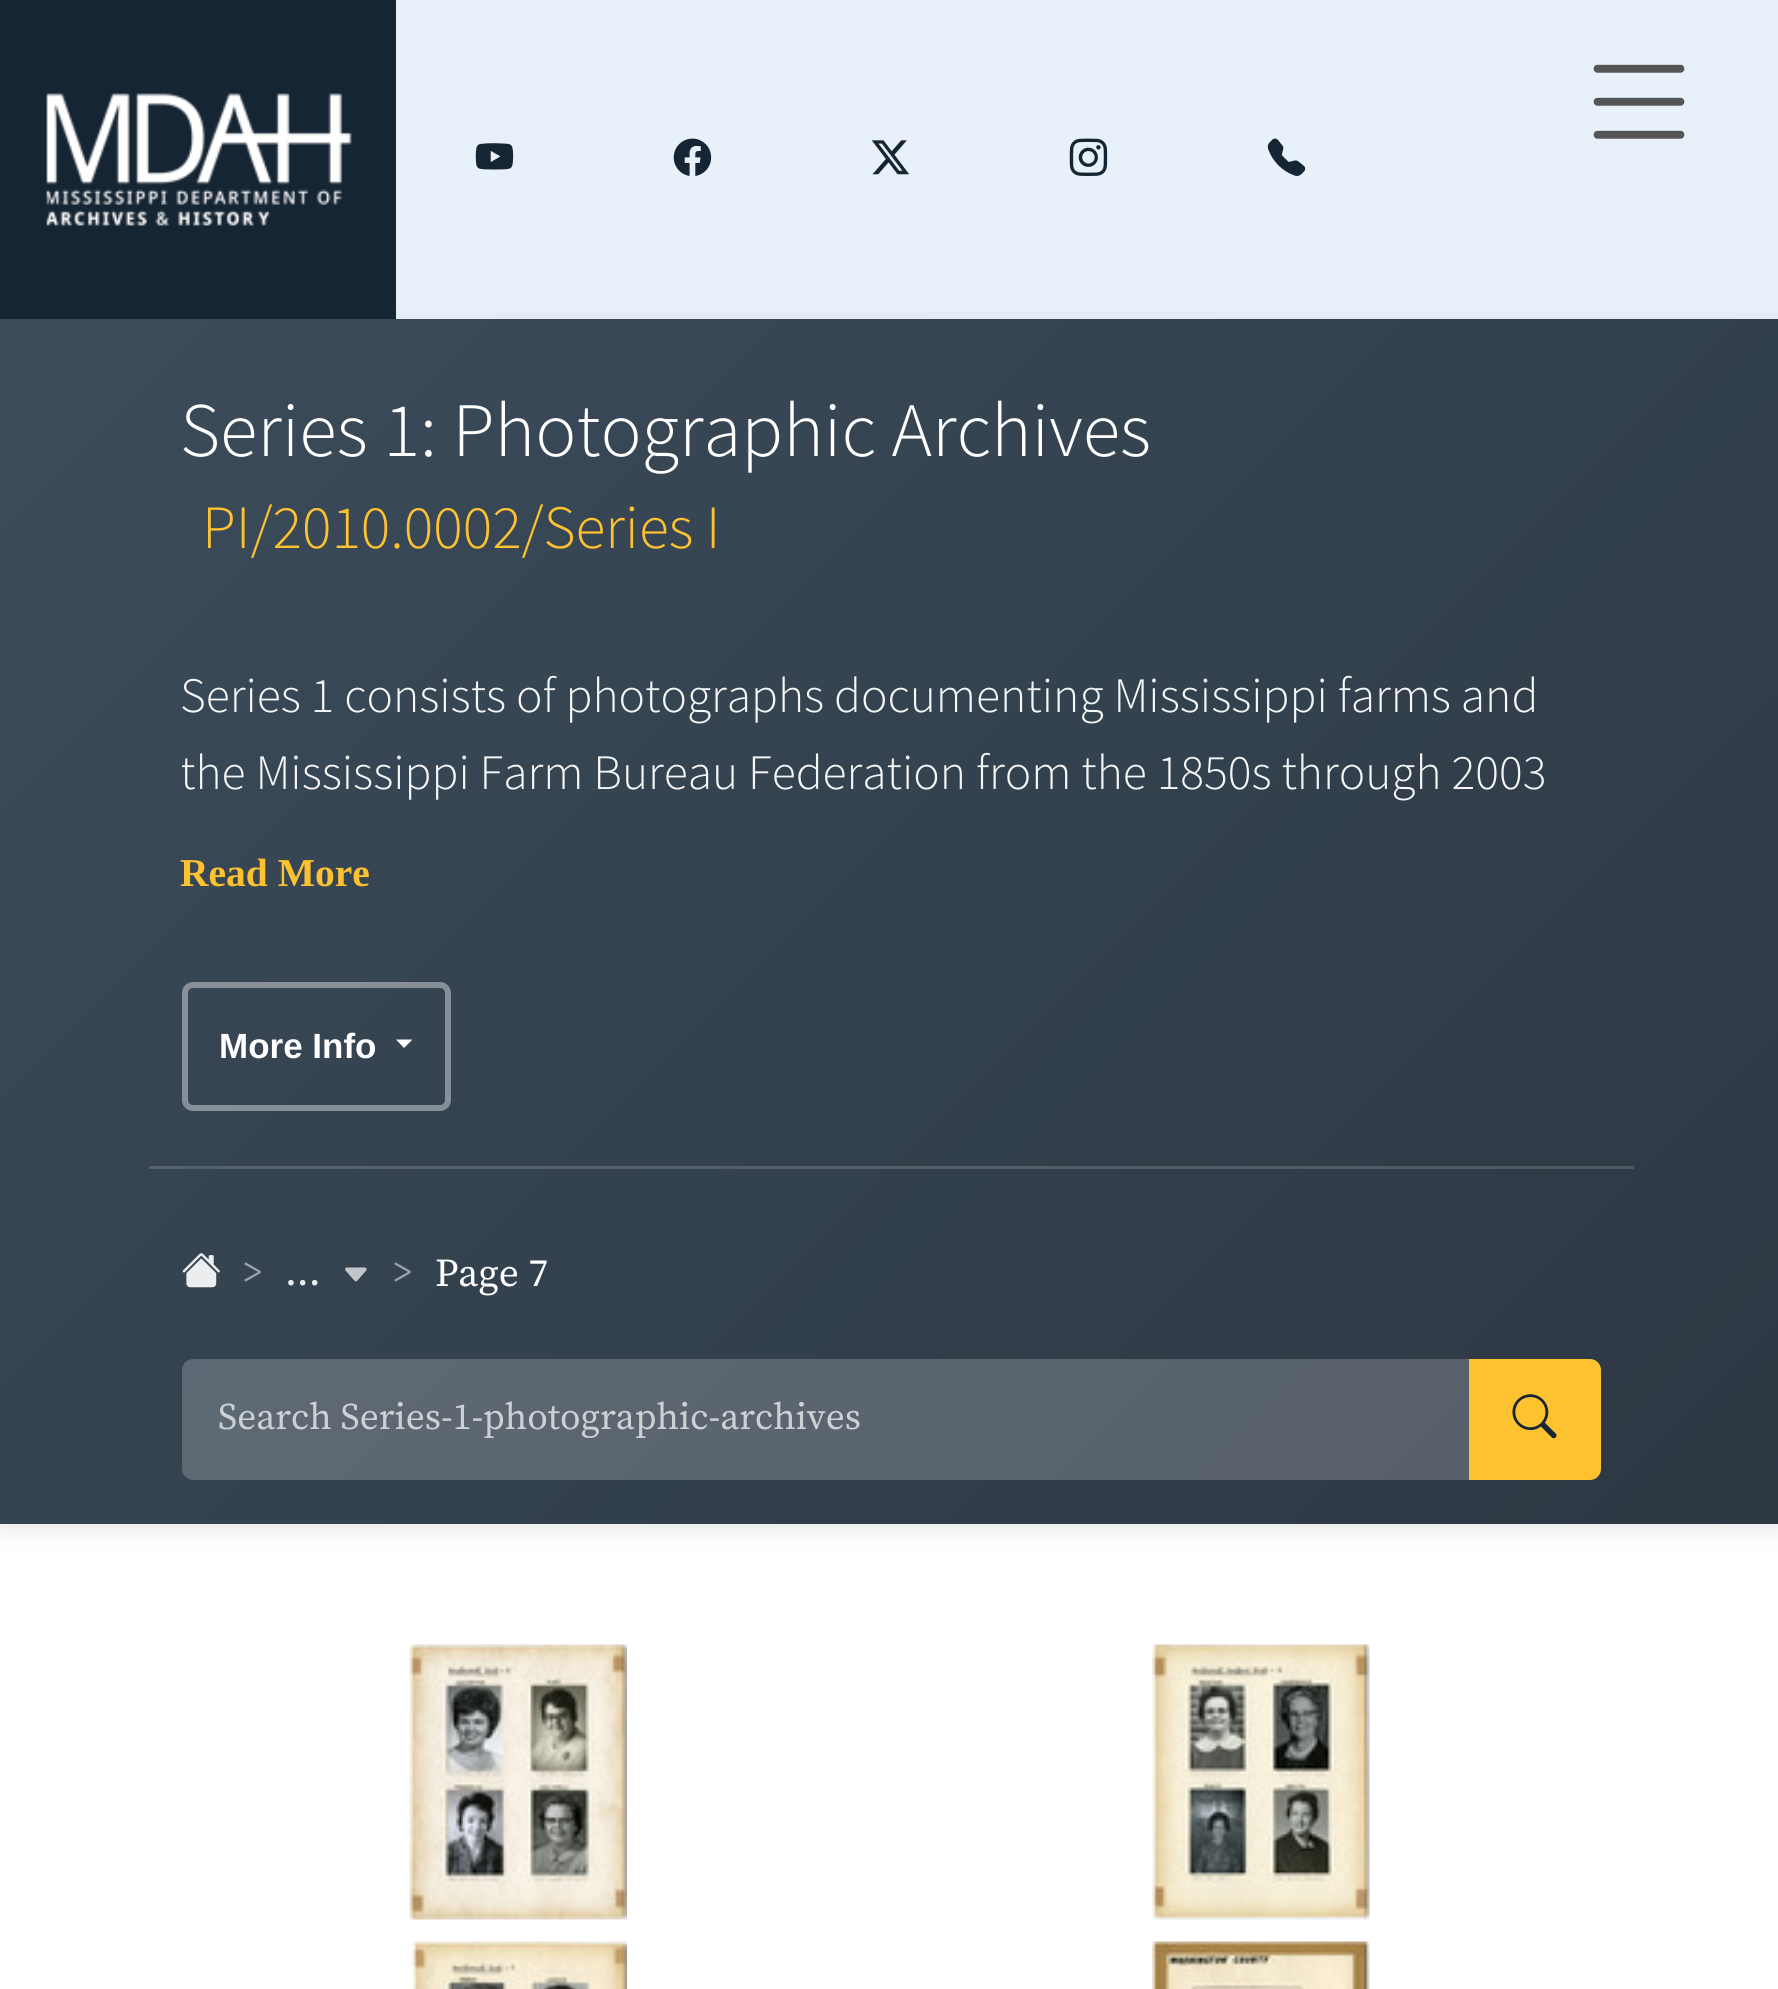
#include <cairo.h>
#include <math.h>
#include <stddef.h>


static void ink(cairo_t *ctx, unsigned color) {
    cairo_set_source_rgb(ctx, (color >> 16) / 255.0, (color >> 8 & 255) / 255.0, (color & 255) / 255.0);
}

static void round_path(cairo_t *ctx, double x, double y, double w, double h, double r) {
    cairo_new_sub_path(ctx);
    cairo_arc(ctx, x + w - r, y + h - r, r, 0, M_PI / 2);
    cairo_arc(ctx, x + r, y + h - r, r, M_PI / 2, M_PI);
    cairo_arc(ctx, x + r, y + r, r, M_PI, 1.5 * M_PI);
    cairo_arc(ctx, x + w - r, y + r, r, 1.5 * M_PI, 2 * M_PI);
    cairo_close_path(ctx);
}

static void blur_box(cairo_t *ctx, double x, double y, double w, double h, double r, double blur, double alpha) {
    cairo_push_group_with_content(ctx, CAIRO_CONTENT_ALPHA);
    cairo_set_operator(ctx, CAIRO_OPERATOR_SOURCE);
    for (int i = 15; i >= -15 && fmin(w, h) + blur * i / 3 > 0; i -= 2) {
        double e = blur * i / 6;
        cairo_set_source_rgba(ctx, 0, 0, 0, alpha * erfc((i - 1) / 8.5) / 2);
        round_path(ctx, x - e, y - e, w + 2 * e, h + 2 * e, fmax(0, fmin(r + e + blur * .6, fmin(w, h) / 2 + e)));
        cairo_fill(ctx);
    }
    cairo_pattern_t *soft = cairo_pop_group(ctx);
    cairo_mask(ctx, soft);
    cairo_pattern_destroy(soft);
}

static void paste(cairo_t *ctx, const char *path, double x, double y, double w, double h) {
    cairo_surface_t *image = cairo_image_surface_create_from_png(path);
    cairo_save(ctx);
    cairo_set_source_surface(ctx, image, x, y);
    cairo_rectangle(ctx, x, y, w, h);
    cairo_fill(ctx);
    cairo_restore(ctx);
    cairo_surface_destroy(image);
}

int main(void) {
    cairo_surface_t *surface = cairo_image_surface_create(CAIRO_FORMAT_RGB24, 1778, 1989);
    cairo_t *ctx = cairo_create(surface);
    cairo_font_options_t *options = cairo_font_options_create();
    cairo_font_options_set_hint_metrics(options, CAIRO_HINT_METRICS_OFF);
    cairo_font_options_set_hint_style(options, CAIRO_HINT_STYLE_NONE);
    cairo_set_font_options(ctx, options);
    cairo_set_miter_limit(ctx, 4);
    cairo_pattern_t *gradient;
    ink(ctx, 0xFFFFFF);
    cairo_paint(ctx);
    ink(ctx, 0xE8F1F9);
    cairo_rectangle(ctx, 396, 0, 1382, 319);
    cairo_fill(ctx);
    ink(ctx, 0x000000);
    blur_box(ctx, 0, 325, 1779, 1204, 0, 11, 0.1);
    paste(ctx, "media/1.png", 0, 0, 396, 319);
    paste(ctx, "media/2.png", 1593, 64, 92, 75);
    paste(ctx, "media/3.png", 475, 143, 39, 27);
    paste(ctx, "media/4.png", 673, 138, 39, 38);
    paste(ctx, "media/5.png", 871, 140, 38, 35);
    paste(ctx, "media/6.png", 1069, 138, 39, 38);
    paste(ctx, "media/7.png", 1267, 138, 39, 38);
    gradient = cairo_pattern_create_linear(144, 175, 1636, 1667);
    cairo_pattern_add_color_stop_rgba(gradient, 0, 0.235, 0.298, 0.357, 1);
    cairo_pattern_add_color_stop_rgba(gradient, 1, 0.173, 0.216, 0.259, 1);
    cairo_set_source(ctx, gradient);
    cairo_pattern_destroy(gradient);
    cairo_rectangle(ctx, 0, 319, 1778, 1205);
    cairo_fill(ctx);
    gradient = cairo_pattern_create_linear(144, 175, 1636, 1667);
    cairo_pattern_add_color_stop_rgba(gradient, 0, 0.349, 0.404, 0.455, 1);
    cairo_pattern_add_color_stop_rgba(gradient, 1, 0.298, 0.333, 0.369, 1);
    cairo_set_source(ctx, gradient);
    cairo_pattern_destroy(gradient);
    cairo_rectangle(ctx, 149, 1166, 1485, 3);
    cairo_fill(ctx);
    cairo_select_font_face(ctx, "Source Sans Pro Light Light", CAIRO_FONT_SLANT_NORMAL, CAIRO_FONT_WEIGHT_NORMAL);
    cairo_set_font_size(ctx, 77);
    ink(ctx, 0xFFFFFF);
    cairo_move_to(ctx, 180, 456);
    cairo_show_text(ctx, "Series 1: Photographic Archives");
    cairo_set_font_size(ctx, 61.5);
    ink(ctx, 0xFEC230);
    cairo_move_to(ctx, 202, 548);
    cairo_show_text(ctx, "PI/2010.0002/Series I");
    cairo_set_font_size(ctx, 49.5);
    ink(ctx, 0xF5F6F6);
    cairo_move_to(ctx, 180, 712);
    cairo_show_text(ctx, "Series 1 consists of photographs documenting Mississippi farms and");
    cairo_save(ctx);
    cairo_rectangle(ctx, 182, 657, 1419, 154);
    cairo_clip(ctx);
    cairo_move_to(ctx, 180, 789);
    cairo_show_text(ctx, "the Mississippi Farm Bureau Federation from the 1850s through 2003");
    cairo_restore(ctx);
    cairo_select_font_face(ctx, "Liberation Serif", CAIRO_FONT_SLANT_NORMAL, CAIRO_FONT_WEIGHT_BOLD);
    cairo_set_font_size(ctx, 39.5);
    ink(ctx, 0xFEC230);
    cairo_move_to(ctx, 180, 886);
    cairo_show_text(ctx, "Read More");
    round_path(ctx, 185, 985, 263, 123, 8);
    cairo_set_source_rgba(ctx, 1, 1, 1, 0.4);
    cairo_set_line_width(ctx, 6);
    cairo_stroke(ctx);
    cairo_select_font_face(ctx, "Liberation Sans", CAIRO_FONT_SLANT_NORMAL, CAIRO_FONT_WEIGHT_BOLD);
    cairo_set_font_size(ctx, 35);
    ink(ctx, 0xFFFFFF);
    cairo_move_to(ctx, 219, 1058);
    cairo_show_text(ctx, "More Info");
    cairo_new_path(ctx);
    cairo_move_to(ctx, 396, 1039.5);
    cairo_line_to(ctx, 412.5, 1039.5);
    cairo_line_to(ctx, 404, 1048);
    cairo_close_path(ctx);
    cairo_fill(ctx);
    paste(ctx, "media/8.png", 182, 1253, 38, 35);
    cairo_select_font_face(ctx, "Source Serif Pro", CAIRO_FONT_SLANT_NORMAL, CAIRO_FONT_WEIGHT_NORMAL);
    cairo_set_font_size(ctx, 39.5);
    ink(ctx, 0x9AA1A8);
    cairo_move_to(ctx, 242, 1285);
    cairo_show_text(ctx, ">");
    ink(ctx, 0xEBECEE);
    cairo_move_to(ctx, 285, 1285);
    cairo_show_text(ctx, "...");
    paste(ctx, "media/9.png", 345, 1267, 22, 15);
    ink(ctx, 0x9AA1A8);
    cairo_move_to(ctx, 392, 1285);
    cairo_show_text(ctx, ">");
    ink(ctx, 0xFFFFFF);
    cairo_move_to(ctx, 435, 1286);
    cairo_show_text(ctx, "Page 7");
    cairo_set_source_rgba(ctx, 1, 1, 1, 0.2);
    cairo_new_path(ctx);
    cairo_move_to(ctx, 193, 1359);
    cairo_line_to(ctx, 1471, 1359);
    cairo_line_to(ctx, 1471, 1480);
    cairo_line_to(ctx, 193, 1480);
    cairo_curve_to(ctx, 187, 1480, 182, 1475, 182, 1469);
    cairo_line_to(ctx, 182, 1370);
    cairo_curve_to(ctx, 182, 1364, 187, 1359, 193, 1359);
    cairo_close_path(ctx);
    cairo_fill(ctx);
    cairo_set_font_size(ctx, 37.4);
    ink(ctx, 0xCED1D4);
    cairo_move_to(ctx, 218, 1429);
    cairo_show_text(ctx, "Search Series-1-photographic-archives");
    ink(ctx, 0xFEC230);
    cairo_new_path(ctx);
    cairo_move_to(ctx, 1469, 1359);
    cairo_line_to(ctx, 1590, 1359);
    cairo_curve_to(ctx, 1596, 1359, 1601, 1364, 1601, 1370);
    cairo_line_to(ctx, 1601, 1469);
    cairo_curve_to(ctx, 1601, 1475, 1596, 1480, 1590, 1480);
    cairo_line_to(ctx, 1469, 1480);
    cairo_close_path(ctx);
    cairo_fill(ctx);
    paste(ctx, "media/10.png", 1512, 1394, 45, 45);
    paste(ctx, "media/11.png", 409, 1644, 218, 276);
    paste(ctx, "media/12.png", 1152, 1644, 218, 276);
    paste(ctx, "media/13.png", 412, 1941, 215, 48);
    paste(ctx, "media/14.png", 1152, 1941, 218, 48);
    cairo_surface_write_to_png(surface, "image.png");
    cairo_font_options_destroy(options);
    cairo_destroy(ctx);
    cairo_surface_destroy(surface);
    return 0;
}
